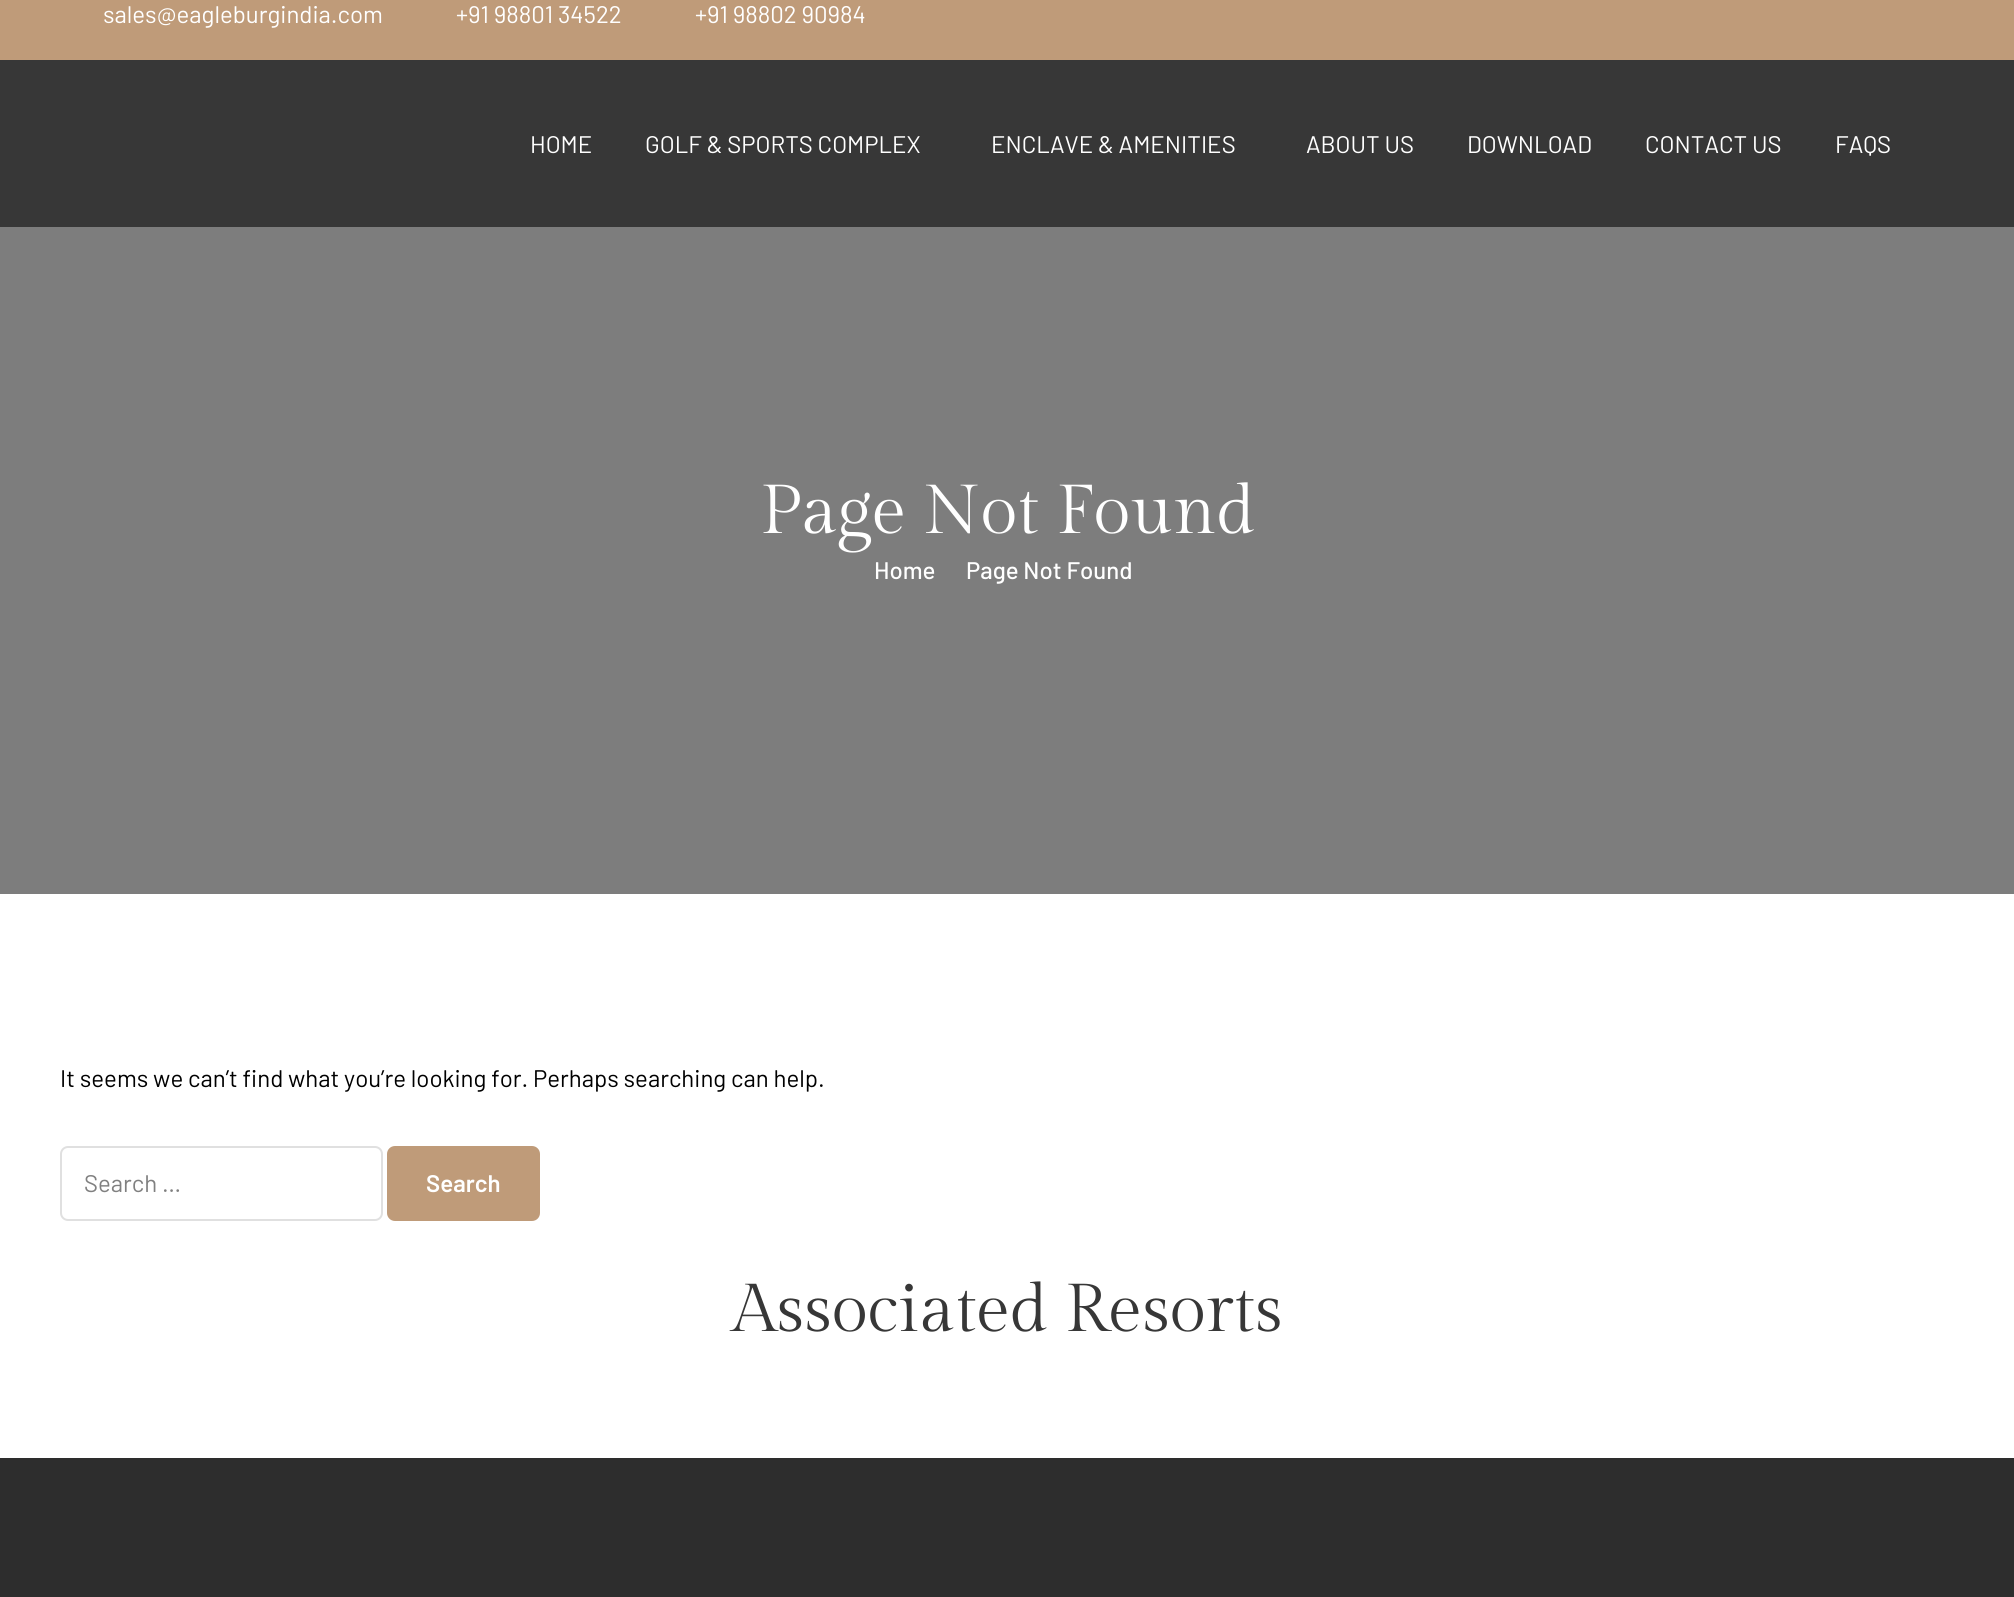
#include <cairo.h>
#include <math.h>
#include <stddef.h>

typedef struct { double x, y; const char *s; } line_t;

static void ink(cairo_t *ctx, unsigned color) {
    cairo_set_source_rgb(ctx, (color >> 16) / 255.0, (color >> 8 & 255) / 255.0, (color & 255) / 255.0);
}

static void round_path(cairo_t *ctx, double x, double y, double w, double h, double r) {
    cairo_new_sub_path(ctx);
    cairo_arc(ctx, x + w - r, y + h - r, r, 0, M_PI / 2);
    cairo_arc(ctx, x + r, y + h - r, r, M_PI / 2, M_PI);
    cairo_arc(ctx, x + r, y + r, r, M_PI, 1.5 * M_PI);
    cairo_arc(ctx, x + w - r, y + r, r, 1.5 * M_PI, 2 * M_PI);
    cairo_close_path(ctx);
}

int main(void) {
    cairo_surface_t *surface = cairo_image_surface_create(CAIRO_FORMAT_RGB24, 2014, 1597);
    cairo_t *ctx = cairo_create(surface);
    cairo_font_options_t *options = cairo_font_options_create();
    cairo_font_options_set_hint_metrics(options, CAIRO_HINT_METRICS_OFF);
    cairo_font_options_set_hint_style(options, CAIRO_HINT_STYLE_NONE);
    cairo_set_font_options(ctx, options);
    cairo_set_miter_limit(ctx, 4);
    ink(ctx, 0xFFFFFF);
    cairo_paint(ctx);
    ink(ctx, 0xBF9B79);
    cairo_rectangle(ctx, 0, 0, 2014, 60);
    cairo_fill(ctx);
    cairo_select_font_face(ctx, "Barlow", CAIRO_FONT_SLANT_NORMAL, CAIRO_FONT_WEIGHT_NORMAL);
    cairo_set_font_size(ctx, 24);
    ink(ctx, 0xFFFFFF);
    {
        static const line_t items[] = {
            {103, 23, "sales@eagleburgindia.com"},
            {456, 23, "+91 98801 34522"},
            {695, 23, "+91 98802 90984"},
        };
        for (size_t i = 0; i < sizeof items / sizeof *items; i++) {
            cairo_move_to(ctx, items[i].x, items[i].y);
            cairo_show_text(ctx, items[i].s);
        }
    }
    ink(ctx, 0x373737);
    cairo_rectangle(ctx, 0, 60, 2014, 167);
    cairo_fill(ctx);
    ink(ctx, 0xFFFFFF);
    {
        static const line_t items[] = {
            {530, 153, "HOME"},
            {645, 153, "GOLF & SPORTS COMPLEX"},
            {991, 153, "ENCLAVE & AMENITIES"},
            {1306, 153, "ABOUT US"},
            {1467, 153, "DOWNLOAD"},
            {1645, 153, "CONTACT US"},
            {1835, 153, "FAQS"},
        };
        for (size_t i = 0; i < sizeof items / sizeof *items; i++) {
            cairo_move_to(ctx, items[i].x, items[i].y);
            cairo_show_text(ctx, items[i].s);
        }
    }
    ink(ctx, 0x7D7D7D);
    cairo_rectangle(ctx, 0, 227, 2014, 667);
    cairo_fill(ctx);
    cairo_select_font_face(ctx, "Gilda Display", CAIRO_FONT_SLANT_NORMAL, CAIRO_FONT_WEIGHT_NORMAL);
    cairo_set_font_size(ctx, 69);
    ink(ctx, 0xFFFFFF);
    cairo_move_to(ctx, 760, 533);
    cairo_show_text(ctx, "Page Not Found");
    cairo_select_font_face(ctx, "Barlow Medium", CAIRO_FONT_SLANT_NORMAL, CAIRO_FONT_WEIGHT_NORMAL);
    cairo_set_font_size(ctx, 24);
    cairo_move_to(ctx, 874, 579);
    cairo_show_text(ctx, "Home");
    cairo_move_to(ctx, 966, 579);
    cairo_show_text(ctx, "Page Not Found");
    cairo_select_font_face(ctx, "Barlow", CAIRO_FONT_SLANT_NORMAL, CAIRO_FONT_WEIGHT_NORMAL);
    ink(ctx, 0x000000);
    cairo_move_to(ctx, 60, 1087);
    cairo_show_text(ctx, "It seems we can’t find what you’re looking for. Perhaps searching can help.");
    round_path(ctx, 61, 1147, 321, 73, 7);
    ink(ctx, 0xE0E0E0);
    cairo_stroke(ctx);
    ink(ctx, 0x808080);
    cairo_move_to(ctx, 84, 1192);
    cairo_show_text(ctx, "Search …");
    ink(ctx, 0xBF9B79);
    round_path(ctx, 388, 1147, 151, 73, 7);
    cairo_fill_preserve(ctx);
    cairo_stroke(ctx);
    cairo_select_font_face(ctx, "Barlow SemiBold", CAIRO_FONT_SLANT_NORMAL, CAIRO_FONT_WEIGHT_NORMAL);
    ink(ctx, 0xFFFFFF);
    cairo_move_to(ctx, 426, 1192);
    cairo_show_text(ctx, "Search");
    cairo_select_font_face(ctx, "Gilda Display", CAIRO_FONT_SLANT_NORMAL, CAIRO_FONT_WEIGHT_NORMAL);
    cairo_set_font_size(ctx, 67.5);
    ink(ctx, 0x373737);
    cairo_move_to(ctx, 732, 1331);
    cairo_show_text(ctx, "Associated Resorts");
    ink(ctx, 0x2D2D2D);
    cairo_rectangle(ctx, 0, 1458, 2014, 139);
    cairo_fill(ctx);
    cairo_surface_write_to_png(surface, "image.png");
    cairo_font_options_destroy(options);
    cairo_destroy(ctx);
    cairo_surface_destroy(surface);
    return 0;
}
